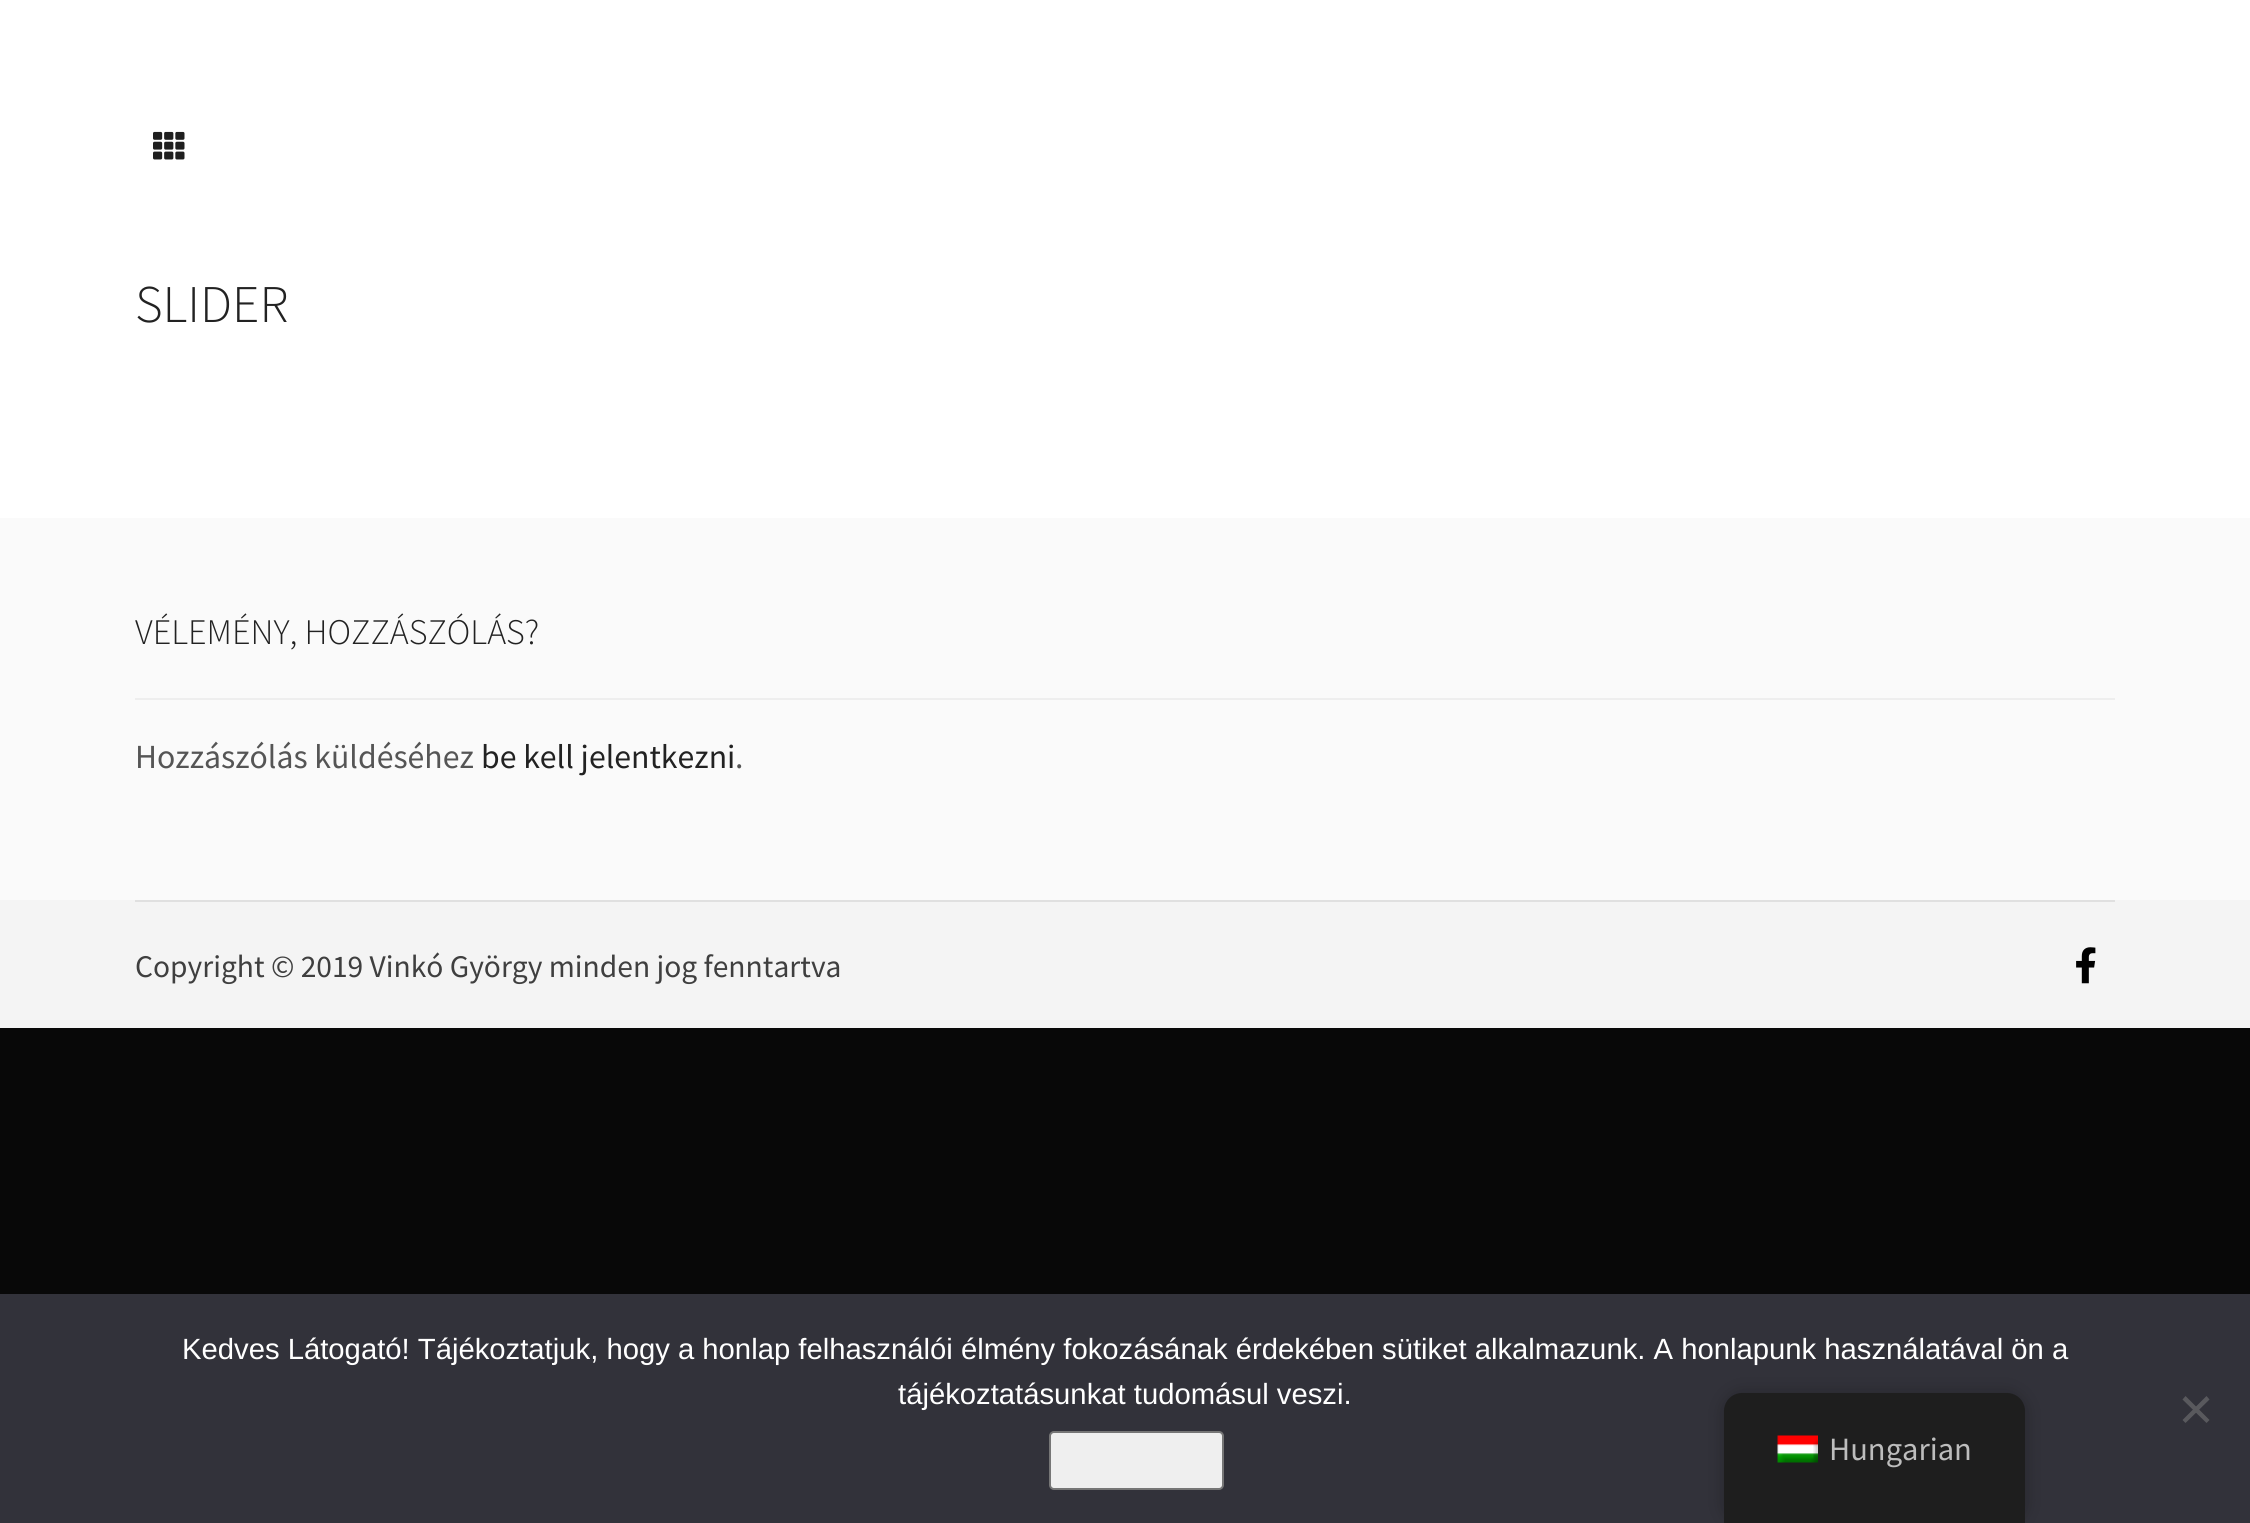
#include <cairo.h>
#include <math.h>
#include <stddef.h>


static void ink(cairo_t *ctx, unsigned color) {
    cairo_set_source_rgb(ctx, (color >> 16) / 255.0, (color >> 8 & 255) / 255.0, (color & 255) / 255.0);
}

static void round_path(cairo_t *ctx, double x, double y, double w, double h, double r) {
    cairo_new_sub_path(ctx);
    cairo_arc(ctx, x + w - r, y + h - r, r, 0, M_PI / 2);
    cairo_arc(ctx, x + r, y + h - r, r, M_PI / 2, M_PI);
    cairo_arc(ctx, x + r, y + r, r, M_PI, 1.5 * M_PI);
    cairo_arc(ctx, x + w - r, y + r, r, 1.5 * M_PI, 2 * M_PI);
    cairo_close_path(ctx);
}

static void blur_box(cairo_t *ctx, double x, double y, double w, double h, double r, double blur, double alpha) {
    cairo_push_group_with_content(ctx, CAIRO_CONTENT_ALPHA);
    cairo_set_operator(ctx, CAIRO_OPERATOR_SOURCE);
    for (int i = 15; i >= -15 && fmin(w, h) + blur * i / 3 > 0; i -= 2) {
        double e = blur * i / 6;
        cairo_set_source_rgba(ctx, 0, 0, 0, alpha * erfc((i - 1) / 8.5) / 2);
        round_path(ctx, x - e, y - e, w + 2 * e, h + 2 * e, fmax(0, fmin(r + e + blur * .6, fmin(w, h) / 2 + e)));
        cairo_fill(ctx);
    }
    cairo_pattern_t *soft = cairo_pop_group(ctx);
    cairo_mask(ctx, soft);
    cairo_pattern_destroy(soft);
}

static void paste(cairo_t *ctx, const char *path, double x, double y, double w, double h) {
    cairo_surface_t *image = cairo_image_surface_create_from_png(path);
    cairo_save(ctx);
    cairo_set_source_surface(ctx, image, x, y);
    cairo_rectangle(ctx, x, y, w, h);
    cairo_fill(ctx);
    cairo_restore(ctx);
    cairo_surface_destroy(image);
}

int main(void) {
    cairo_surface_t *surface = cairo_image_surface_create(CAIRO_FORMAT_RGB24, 2250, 1523);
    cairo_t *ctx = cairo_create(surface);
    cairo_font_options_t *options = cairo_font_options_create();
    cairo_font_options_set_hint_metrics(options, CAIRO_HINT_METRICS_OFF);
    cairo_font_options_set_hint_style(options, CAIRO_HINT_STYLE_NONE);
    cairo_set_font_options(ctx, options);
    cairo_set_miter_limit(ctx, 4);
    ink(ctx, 0x080808);
    cairo_paint(ctx);
    ink(ctx, 0xFFFFFF);
    cairo_rectangle(ctx, 0, 0, 2250, 518);
    cairo_fill(ctx);
    paste(ctx, "media/1.png", 153, 131, 32, 29);
    cairo_select_font_face(ctx, "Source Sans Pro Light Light", CAIRO_FONT_SLANT_NORMAL, CAIRO_FONT_WEIGHT_NORMAL);
    cairo_set_font_size(ctx, 53);
    ink(ctx, 0x222222);
    cairo_move_to(ctx, 135, 322);
    cairo_show_text(ctx, "SLIDER");
    ink(ctx, 0xFAFAFA);
    cairo_rectangle(ctx, 0, 518, 2250, 382);
    cairo_fill(ctx);
    ink(ctx, 0xEEEEEE);
    cairo_rectangle(ctx, 135, 698, 1980, 2);
    cairo_fill(ctx);
    cairo_set_font_size(ctx, 36);
    ink(ctx, 0x222222);
    cairo_move_to(ctx, 135, 644);
    cairo_show_text(ctx, "VÉLEMÉNY, HOZZÁSZÓLÁS?");
    cairo_select_font_face(ctx, "Source Sans Pro", CAIRO_FONT_SLANT_NORMAL, CAIRO_FONT_WEIGHT_NORMAL);
    cairo_set_font_size(ctx, 33.75);
    ink(ctx, 0x555555);
    cairo_move_to(ctx, 135, 768);
    cairo_show_text(ctx, "Hozzászólás küldéséhez");
    ink(ctx, 0x222222);
    cairo_move_to(ctx, 481, 768);
    cairo_show_text(ctx, "be kell jelentkezni");
    ink(ctx, 0x555555);
    cairo_move_to(ctx, 735, 768);
    cairo_show_text(ctx, ".");
    ink(ctx, 0xF4F4F4);
    cairo_rectangle(ctx, 0, 900, 2250, 128);
    cairo_fill(ctx);
    ink(ctx, 0xE0E0E0);
    cairo_rectangle(ctx, 135, 900, 1980, 2);
    cairo_fill(ctx);
    cairo_set_font_size(ctx, 31.5);
    ink(ctx, 0x3F3F3F);
    cairo_move_to(ctx, 135, 977);
    cairo_show_text(ctx, "Copyright © 2019 Vinkó György minden jog fenntartva");
    paste(ctx, "media/2.png", 2076, 947, 20, 37);
    ink(ctx, 0x32323A);
    cairo_rectangle(ctx, 0, 1294, 2250, 229);
    cairo_fill(ctx);
    cairo_select_font_face(ctx, "Liberation Sans", CAIRO_FONT_SLANT_NORMAL, CAIRO_FONT_WEIGHT_NORMAL);
    cairo_set_font_size(ctx, 29.25);
    ink(ctx, 0xFFFFFF);
    cairo_move_to(ctx, 182, 1359);
    cairo_show_text(ctx, "Kedves Látogató! Tájékoztatjuk, hogy a honlap felhasználói élmény fokozásának érdekében sütiket alkalmazunk. A honlapunk használatával ön a");
    cairo_move_to(ctx, 898, 1404);
    cairo_show_text(ctx, "tájékoztatásunkat tudomásul veszi.");
    ink(ctx, 0x59595D);
    cairo_new_path(ctx);
    cairo_move_to(ctx, 2206.5, 1396);
    cairo_line_to(ctx, 2209.5, 1399.5);
    cairo_line_to(ctx, 2185.5, 1423);
    cairo_line_to(ctx, 2182.5, 1420);
    cairo_close_path(ctx);
    cairo_fill(ctx);
    cairo_new_path(ctx);
    cairo_move_to(ctx, 2182.5, 1399.5);
    cairo_line_to(ctx, 2185.5, 1396);
    cairo_line_to(ctx, 2209.5, 1420);
    cairo_line_to(ctx, 2206.5, 1423);
    cairo_close_path(ctx);
    cairo_fill(ctx);
    ink(ctx, 0xEFEFEF);
    round_path(ctx, 1050, 1432, 173, 57, 4);
    cairo_fill_preserve(ctx);
    ink(ctx, 0x767676);
    cairo_stroke(ctx);
    ink(ctx, 0x000000);
    blur_box(ctx, 1724, 1393, 301, 130, 18, 9, 0.25);
    ink(ctx, 0x1E1E1E);
    cairo_new_path(ctx);
    cairo_move_to(ctx, 1742, 1393);
    cairo_line_to(ctx, 2007, 1393);
    cairo_curve_to(ctx, 2017, 1393, 2025, 1401, 2025, 1411);
    cairo_line_to(ctx, 2025, 1523);
    cairo_line_to(ctx, 1724, 1523);
    cairo_line_to(ctx, 1724, 1411);
    cairo_curve_to(ctx, 1724, 1401, 1732, 1393, 1742, 1393);
    cairo_close_path(ctx);
    cairo_fill(ctx);
    paste(ctx, "media/3.png", 1777, 1435, 41, 28);
    cairo_select_font_face(ctx, "Source Sans Pro", CAIRO_FONT_SLANT_NORMAL, CAIRO_FONT_WEIGHT_NORMAL);
    cairo_set_font_size(ctx, 32.5);
    ink(ctx, 0xBDBDBD);
    cairo_move_to(ctx, 1829, 1460);
    cairo_show_text(ctx, "Hungarian");
    cairo_surface_write_to_png(surface, "image.png");
    cairo_font_options_destroy(options);
    cairo_destroy(ctx);
    cairo_surface_destroy(surface);
    return 0;
}
